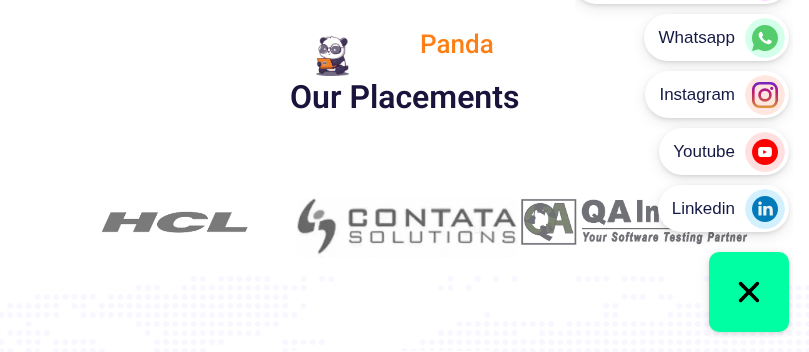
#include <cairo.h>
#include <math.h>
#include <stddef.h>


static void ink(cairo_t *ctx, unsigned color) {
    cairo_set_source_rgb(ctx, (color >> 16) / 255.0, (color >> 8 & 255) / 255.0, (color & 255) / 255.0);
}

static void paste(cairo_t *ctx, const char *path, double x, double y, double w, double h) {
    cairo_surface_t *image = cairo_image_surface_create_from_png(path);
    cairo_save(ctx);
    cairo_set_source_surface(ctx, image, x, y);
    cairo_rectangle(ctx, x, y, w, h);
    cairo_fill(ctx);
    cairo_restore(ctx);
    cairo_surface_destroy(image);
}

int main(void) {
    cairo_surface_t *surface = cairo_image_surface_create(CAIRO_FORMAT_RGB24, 809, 352);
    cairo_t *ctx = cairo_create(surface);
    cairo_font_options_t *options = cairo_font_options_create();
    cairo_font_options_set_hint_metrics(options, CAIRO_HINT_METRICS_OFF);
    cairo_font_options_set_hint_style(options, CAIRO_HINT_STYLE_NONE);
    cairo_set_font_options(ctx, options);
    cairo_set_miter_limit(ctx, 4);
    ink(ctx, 0xFFFFFF);
    cairo_paint(ctx);
    paste(ctx, "media/1.png", 316, 36, 33, 40);
    cairo_select_font_face(ctx, "Roboto Medium", CAIRO_FONT_SLANT_NORMAL, CAIRO_FONT_WEIGHT_NORMAL);
    cairo_set_font_size(ctx, 26);
    ink(ctx, 0xFD7E14);
    cairo_move_to(ctx, 420, 53);
    cairo_show_text(ctx, "Panda");
    cairo_select_font_face(ctx, "Roboto SemiBold", CAIRO_FONT_SLANT_NORMAL, CAIRO_FONT_WEIGHT_NORMAL);
    cairo_set_font_size(ctx, 32);
    ink(ctx, 0x1A133B);
    cairo_move_to(ctx, 290, 108);
    cairo_show_text(ctx, "Our Placements");
    paste(ctx, "media/2.png", 101, 211, 147, 22);
    paste(ctx, "media/3.png", 297, 198, 221, 60);
    paste(ctx, "media/4.png", 521, 198, 227, 47);
    paste(ctx, "media/5.png", 0, 276, 809, 76);
    ink(ctx, 0xFFFFFF);
    cairo_rectangle(ctx, 292, 351, 197, 1);
    cairo_fill(ctx);
    paste(ctx, "media/6.png", 575, 0, 218, 338);
    cairo_surface_write_to_png(surface, "image.png");
    cairo_font_options_destroy(options);
    cairo_destroy(ctx);
    cairo_surface_destroy(surface);
    return 0;
}
